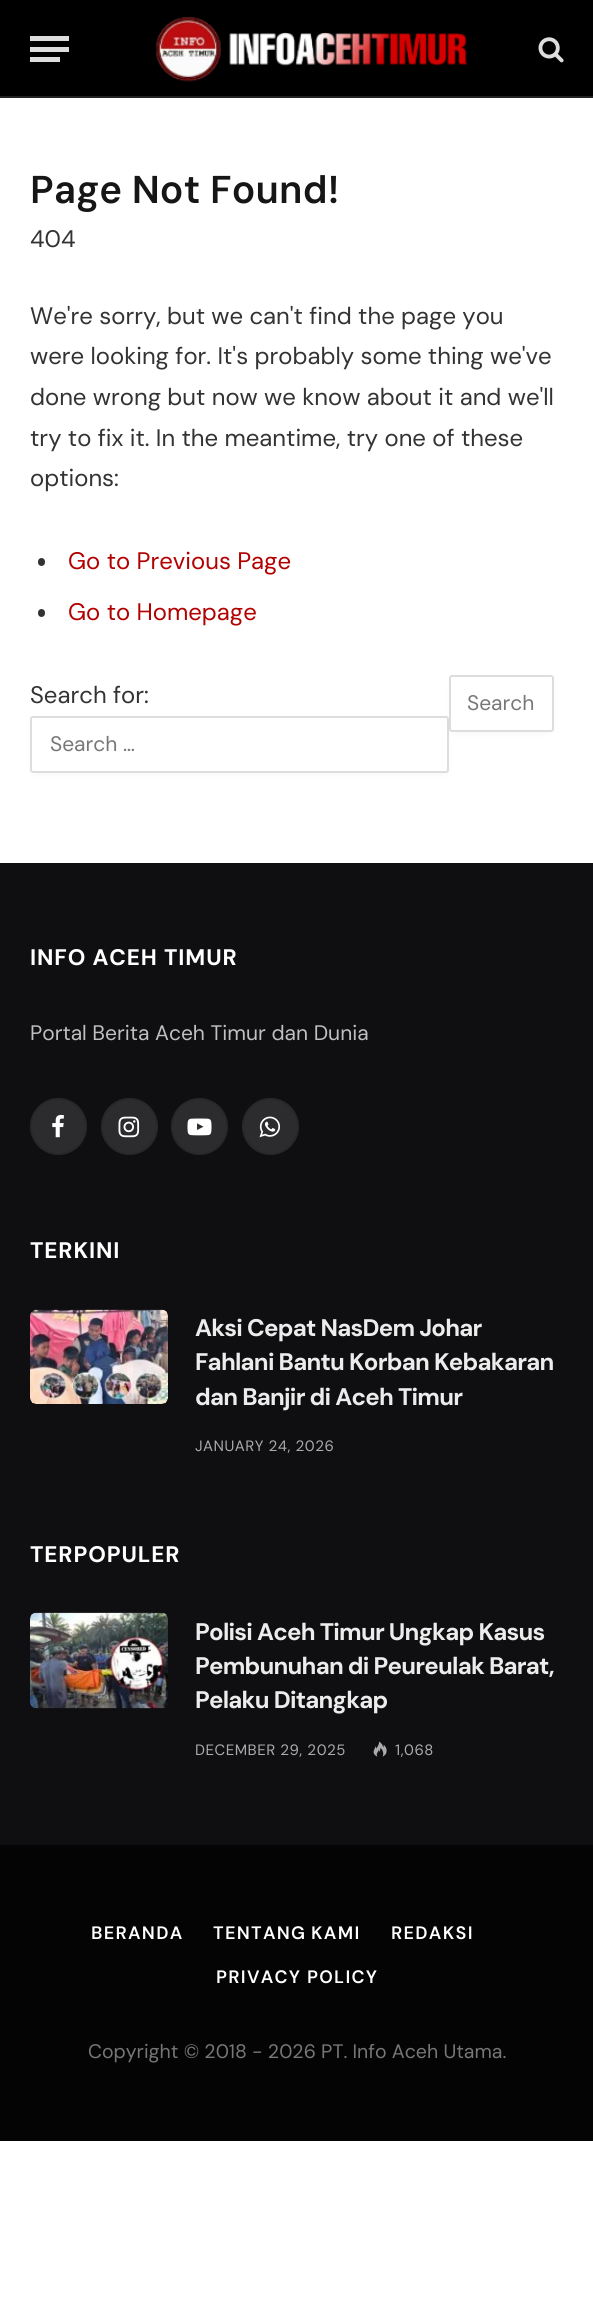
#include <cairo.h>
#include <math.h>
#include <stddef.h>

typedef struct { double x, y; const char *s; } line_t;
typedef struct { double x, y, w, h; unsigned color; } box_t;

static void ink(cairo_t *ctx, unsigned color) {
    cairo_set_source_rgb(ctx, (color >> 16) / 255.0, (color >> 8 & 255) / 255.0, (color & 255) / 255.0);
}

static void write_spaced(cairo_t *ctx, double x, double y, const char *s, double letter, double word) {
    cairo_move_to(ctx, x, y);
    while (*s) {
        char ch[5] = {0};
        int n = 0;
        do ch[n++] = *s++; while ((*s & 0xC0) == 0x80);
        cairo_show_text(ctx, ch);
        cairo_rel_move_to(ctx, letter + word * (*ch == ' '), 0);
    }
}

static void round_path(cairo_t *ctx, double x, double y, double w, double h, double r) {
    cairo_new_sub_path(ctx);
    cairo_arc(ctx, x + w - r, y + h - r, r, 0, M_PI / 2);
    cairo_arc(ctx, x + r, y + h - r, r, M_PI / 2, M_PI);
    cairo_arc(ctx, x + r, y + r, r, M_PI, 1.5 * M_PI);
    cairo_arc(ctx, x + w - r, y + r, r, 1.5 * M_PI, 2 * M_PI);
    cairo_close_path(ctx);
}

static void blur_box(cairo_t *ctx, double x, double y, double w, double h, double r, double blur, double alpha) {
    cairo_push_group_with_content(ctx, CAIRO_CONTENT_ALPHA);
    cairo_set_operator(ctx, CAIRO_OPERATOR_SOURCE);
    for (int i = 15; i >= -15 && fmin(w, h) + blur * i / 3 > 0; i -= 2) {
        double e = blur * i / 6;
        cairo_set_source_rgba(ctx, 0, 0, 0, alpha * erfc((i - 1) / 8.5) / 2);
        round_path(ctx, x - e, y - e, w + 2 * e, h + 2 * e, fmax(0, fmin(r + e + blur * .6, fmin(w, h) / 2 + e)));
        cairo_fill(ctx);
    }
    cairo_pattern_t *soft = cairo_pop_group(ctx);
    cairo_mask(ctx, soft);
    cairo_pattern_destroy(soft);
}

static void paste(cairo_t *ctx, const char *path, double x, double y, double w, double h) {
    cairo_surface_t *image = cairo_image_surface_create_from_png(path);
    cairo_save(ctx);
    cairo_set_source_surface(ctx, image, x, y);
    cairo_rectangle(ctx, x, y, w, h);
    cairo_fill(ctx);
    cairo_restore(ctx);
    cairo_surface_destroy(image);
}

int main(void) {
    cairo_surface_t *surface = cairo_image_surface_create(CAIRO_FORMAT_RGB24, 593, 2299);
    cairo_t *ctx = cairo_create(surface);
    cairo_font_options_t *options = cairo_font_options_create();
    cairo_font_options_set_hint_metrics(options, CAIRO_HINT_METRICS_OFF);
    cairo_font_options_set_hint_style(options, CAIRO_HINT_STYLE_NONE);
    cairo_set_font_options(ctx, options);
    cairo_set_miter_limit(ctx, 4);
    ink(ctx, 0xFFFFFF);
    cairo_paint(ctx);
    {
        static const box_t items[] = {
            {0, 0, 593, 96, 0x000000},
            {0, 96, 593, 2, 0x222222},
            {30, 57, 30, 5, 0xDDDDDD},
            {30, 36, 39, 5, 0xDDDDDD},
            {30, 47, 39, 5, 0xDDDDDD},
        };
        for (size_t i = 0; i < sizeof items / sizeof *items; i++) {
            ink(ctx, items[i].color);
            cairo_rectangle(ctx, items[i].x, items[i].y, items[i].w, items[i].h);
            cairo_fill(ctx);
        }
    }
    paste(ctx, "media/1.png", 155, 16, 313, 66);
    paste(ctx, "media/2.png", 538, 37, 26, 26);
    cairo_select_font_face(ctx, "DM Sans SemiBold", CAIRO_FONT_SLANT_NORMAL, CAIRO_FONT_WEIGHT_NORMAL);
    cairo_set_font_size(ctx, 38.75);
    ink(ctx, 0x161616);
    cairo_move_to(ctx, 30, 203);
    cairo_show_text(ctx, "Page Not Found!");
    cairo_select_font_face(ctx, "DM Sans", CAIRO_FONT_SLANT_NORMAL, CAIRO_FONT_WEIGHT_NORMAL);
    cairo_set_font_size(ctx, 23.9);
    ink(ctx, 0x333333);
    {
        static const line_t items[] = {
            {30, 247, "404"},
            {30, 324, "We're sorry, but we can't find the page you"},
            {30, 364, "were looking for. It's probably some thing we've"},
            {30, 405, "done wrong but now we know about it and we'll"},
            {30, 446, "try to fix it. In the meantime, try one of these"},
            {30, 486, "options:"},
        };
        for (size_t i = 0; i < sizeof items / sizeof *items; i++) {
            cairo_move_to(ctx, items[i].x, items[i].y);
            cairo_show_text(ctx, items[i].s);
        }
    }
    round_path(ctx, 38, 558, 7, 8, 3.5);
    cairo_fill(ctx);
    ink(ctx, 0xB20101);
    cairo_move_to(ctx, 68, 569);
    cairo_show_text(ctx, "Go to Previous Page");
    ink(ctx, 0x333333);
    round_path(ctx, 38, 609, 7, 8, 3.5);
    cairo_fill(ctx);
    ink(ctx, 0xB20101);
    cairo_move_to(ctx, 68, 620);
    cairo_show_text(ctx, "Go to Homepage");
    ink(ctx, 0x333333);
    cairo_move_to(ctx, 30, 703);
    cairo_show_text(ctx, "Search for:");
    ink(ctx, 0x000000);
    blur_box(ctx, 36, 725, 407, 45, 0, 5, 0.1);
    ink(ctx, 0xFFFFFF);
    round_path(ctx, 31, 717, 417, 55, 2);
    cairo_fill_preserve(ctx);
    ink(ctx, 0xDDDDDD);
    cairo_stroke(ctx);
    cairo_select_font_face(ctx, "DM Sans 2", CAIRO_FONT_SLANT_NORMAL, CAIRO_FONT_WEIGHT_NORMAL);
    cairo_set_font_size(ctx, 21);
    ink(ctx, 0x777777);
    cairo_move_to(ctx, 50, 751);
    cairo_show_text(ctx, "Search …");
    ink(ctx, 0x000000);
    blur_box(ctx, 455, 684, 93, 45, 0, 5, 0.1);
    ink(ctx, 0xFFFFFF);
    round_path(ctx, 450, 676, 103, 55, 2);
    cairo_fill_preserve(ctx);
    ink(ctx, 0xDDDDDD);
    cairo_stroke(ctx);
    ink(ctx, 0x777777);
    cairo_move_to(ctx, 467, 710);
    cairo_show_text(ctx, "Search");
    ink(ctx, 0x0F0F11);
    cairo_rectangle(ctx, 0, 863, 593, 982);
    cairo_fill(ctx);
    cairo_select_font_face(ctx, "DM Sans", CAIRO_FONT_SLANT_NORMAL, CAIRO_FONT_WEIGHT_BOLD);
    cairo_set_font_size(ctx, 22.5);
    ink(ctx, 0xFFFFFF);
    write_spaced(ctx, 30, 965, "INFO ACEH TIMUR", 0.9, 0);
    cairo_select_font_face(ctx, "DM Sans 2", CAIRO_FONT_SLANT_NORMAL, CAIRO_FONT_WEIGHT_NORMAL);
    cairo_set_font_size(ctx, 21);
    ink(ctx, 0xC0C0C0);
    cairo_move_to(ctx, 30, 1040);
    cairo_show_text(ctx, "Portal Berita Aceh Timur dan Dunia");
    ink(ctx, 0x2C2C2E);
    cairo_new_path(ctx);
    cairo_arc(ctx, 58.5, 1126.5, 28.5, 0, 2 * M_PI);
    cairo_fill(ctx);
    cairo_arc(ctx, 58.5, 1126.5, 27.5, 0, 2 * M_PI);
    cairo_set_source_rgba(ctx, 0, 0, 0, 0.09);
    cairo_stroke(ctx);
    paste(ctx, "media/3.png", 52, 1114, 12, 24);
    ink(ctx, 0x2C2C2E);
    cairo_arc(ctx, 129.5, 1126.5, 28.5, 0, 2 * M_PI);
    cairo_fill(ctx);
    cairo_arc(ctx, 129.5, 1126.5, 27.5, 0, 2 * M_PI);
    cairo_set_source_rgba(ctx, 0, 0, 0, 0.09);
    cairo_stroke(ctx);
    paste(ctx, "media/4.png", 118, 1116, 22, 22);
    ink(ctx, 0x2C2C2E);
    cairo_arc(ctx, 199.5, 1126.5, 28.5, 0, 2 * M_PI);
    cairo_fill(ctx);
    cairo_arc(ctx, 199.5, 1126.5, 27.5, 0, 2 * M_PI);
    cairo_set_source_rgba(ctx, 0, 0, 0, 0.09);
    cairo_stroke(ctx);
    paste(ctx, "media/5.png", 187, 1118, 25, 18);
    ink(ctx, 0x2C2C2E);
    cairo_arc(ctx, 270.5, 1126.5, 28.5, 0, 2 * M_PI);
    cairo_fill(ctx);
    cairo_arc(ctx, 270.5, 1126.5, 27.5, 0, 2 * M_PI);
    cairo_set_source_rgba(ctx, 0, 0, 0, 0.09);
    cairo_stroke(ctx);
    paste(ctx, "media/6.png", 259, 1116, 22, 22);
    cairo_select_font_face(ctx, "DM Sans", CAIRO_FONT_SLANT_NORMAL, CAIRO_FONT_WEIGHT_BOLD);
    cairo_set_font_size(ctx, 22.5);
    ink(ctx, 0xFFFFFF);
    write_spaced(ctx, 30, 1258, "TERKINI", 0.9, 0);
    paste(ctx, "media/7.png", 30, 1309, 138, 95);
    cairo_select_font_face(ctx, "DM Sans 2", CAIRO_FONT_SLANT_NORMAL, CAIRO_FONT_WEIGHT_BOLD);
    cairo_set_font_size(ctx, 24);
    ink(ctx, 0xECECEC);
    {
        static const line_t items[] = {
            {195, 1336, "Aksi Cepat NasDem Johar"},
            {195, 1370, "Fahlani Bantu Korban Kebakaran"},
            {195, 1405, "dan Banjir di Aceh Timur"},
        };
        for (size_t i = 0; i < sizeof items / sizeof *items; i++) {
            write_spaced(ctx, items[i].x, items[i].y, items[i].s, -0.75, 0);
        }
    }
    cairo_select_font_face(ctx, "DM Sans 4", CAIRO_FONT_SLANT_NORMAL, CAIRO_FONT_WEIGHT_NORMAL);
    cairo_set_font_size(ctx, 15);
    ink(ctx, 0xABABAC);
    write_spaced(ctx, 195, 1451, "JANUARY 24, 2026", 0.5, 0);
    cairo_select_font_face(ctx, "DM Sans", CAIRO_FONT_SLANT_NORMAL, CAIRO_FONT_WEIGHT_BOLD);
    cairo_set_font_size(ctx, 22.5);
    ink(ctx, 0xFFFFFF);
    write_spaced(ctx, 30, 1562, "TERPOPULER", 0.9, 0);
    paste(ctx, "media/8.png", 30, 1612, 138, 97);
    cairo_select_font_face(ctx, "DM Sans 2", CAIRO_FONT_SLANT_NORMAL, CAIRO_FONT_WEIGHT_BOLD);
    cairo_set_font_size(ctx, 24);
    ink(ctx, 0xECECEC);
    {
        static const line_t items[] = {
            {195, 1640, "Polisi Aceh Timur Ungkap Kasus"},
            {195, 1674, "Pembunuhan di Peureulak Barat,"},
            {195, 1708, "Pelaku Ditangkap"},
        };
        for (size_t i = 0; i < sizeof items / sizeof *items; i++) {
            write_spaced(ctx, items[i].x, items[i].y, items[i].s, -0.75, 0);
        }
    }
    cairo_select_font_face(ctx, "DM Sans 4", CAIRO_FONT_SLANT_NORMAL, CAIRO_FONT_WEIGHT_NORMAL);
    cairo_set_font_size(ctx, 15);
    ink(ctx, 0xABABAC);
    write_spaced(ctx, 195, 1755, "DECEMBER 29, 2025", 0.5, 0);
    paste(ctx, "media/9.png", 373, 1741, 14, 16);
    write_spaced(ctx, 395, 1755, "1,068", 0.5, 0);
    ink(ctx, 0x040404);
    cairo_rectangle(ctx, 0, 1845, 593, 296);
    cairo_fill(ctx);
    cairo_select_font_face(ctx, "DM Sans SemiBold", CAIRO_FONT_SLANT_NORMAL, CAIRO_FONT_WEIGHT_NORMAL);
    cairo_set_font_size(ctx, 18);
    ink(ctx, 0xFFFFFF);
    write_spaced(ctx, 91, 1939, "BERANDA", 1.25, 0);
    write_spaced(ctx, 213, 1939, "TENTANG KAMI", 1.25, -1);
    write_spaced(ctx, 391, 1939, "REDAKSI", 1.25, 0);
    write_spaced(ctx, 216, 1983, "PRIVACY POLICY", 1.25, 0);
    cairo_select_font_face(ctx, "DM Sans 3", CAIRO_FONT_SLANT_NORMAL, CAIRO_FONT_WEIGHT_NORMAL);
    cairo_set_font_size(ctx, 19.5);
    ink(ctx, 0x777777);
    cairo_move_to(ctx, 88, 2058);
    cairo_show_text(ctx, "Copyright © 2018 - 2026 PT. Info Aceh Utama.");
    cairo_surface_write_to_png(surface, "image.png");
    cairo_font_options_destroy(options);
    cairo_destroy(ctx);
    cairo_surface_destroy(surface);
    return 0;
}
